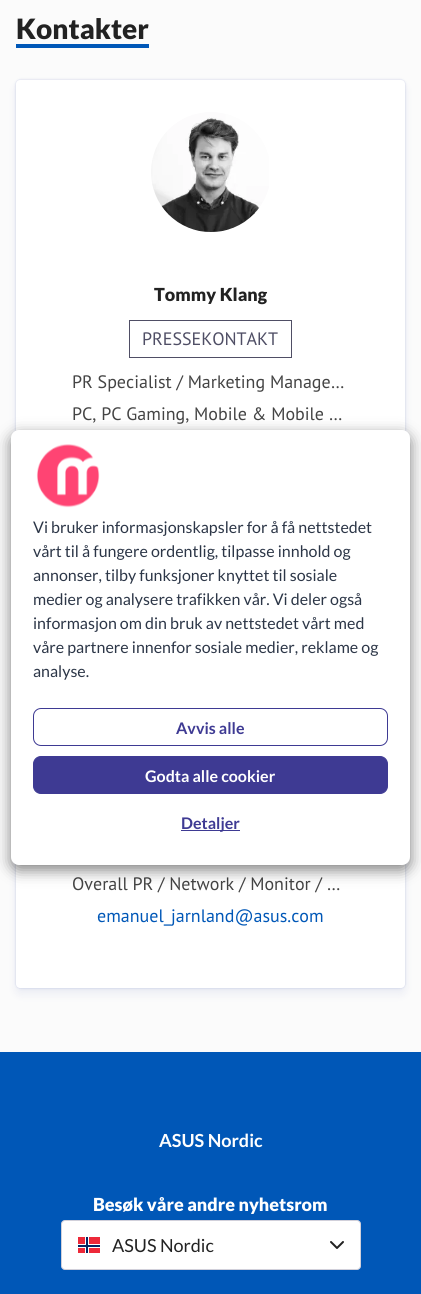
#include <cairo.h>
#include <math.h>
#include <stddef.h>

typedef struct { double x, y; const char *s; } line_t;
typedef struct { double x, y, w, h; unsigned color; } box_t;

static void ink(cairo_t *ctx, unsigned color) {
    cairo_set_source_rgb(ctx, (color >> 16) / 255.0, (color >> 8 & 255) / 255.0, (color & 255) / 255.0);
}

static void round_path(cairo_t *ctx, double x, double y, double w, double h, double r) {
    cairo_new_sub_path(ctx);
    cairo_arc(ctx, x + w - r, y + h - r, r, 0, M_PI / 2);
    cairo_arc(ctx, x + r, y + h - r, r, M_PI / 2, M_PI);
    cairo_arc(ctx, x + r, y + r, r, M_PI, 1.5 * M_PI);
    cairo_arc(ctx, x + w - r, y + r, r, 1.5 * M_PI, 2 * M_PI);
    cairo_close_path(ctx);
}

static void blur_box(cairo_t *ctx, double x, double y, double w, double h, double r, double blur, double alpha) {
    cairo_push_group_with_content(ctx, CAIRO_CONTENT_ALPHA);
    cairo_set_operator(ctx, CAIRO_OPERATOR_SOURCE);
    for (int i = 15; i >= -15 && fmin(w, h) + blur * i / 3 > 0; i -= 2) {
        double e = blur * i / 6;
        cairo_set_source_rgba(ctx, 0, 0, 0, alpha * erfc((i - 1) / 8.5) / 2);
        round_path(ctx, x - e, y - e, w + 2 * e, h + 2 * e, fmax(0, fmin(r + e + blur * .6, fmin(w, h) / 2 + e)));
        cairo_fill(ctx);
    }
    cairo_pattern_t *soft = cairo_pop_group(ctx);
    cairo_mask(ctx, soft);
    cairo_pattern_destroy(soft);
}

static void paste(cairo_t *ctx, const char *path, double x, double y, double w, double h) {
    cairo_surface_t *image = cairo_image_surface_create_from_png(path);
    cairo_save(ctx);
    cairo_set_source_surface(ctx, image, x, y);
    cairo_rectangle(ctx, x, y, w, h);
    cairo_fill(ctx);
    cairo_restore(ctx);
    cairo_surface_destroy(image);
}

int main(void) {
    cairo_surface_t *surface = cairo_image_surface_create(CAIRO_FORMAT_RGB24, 421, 1294);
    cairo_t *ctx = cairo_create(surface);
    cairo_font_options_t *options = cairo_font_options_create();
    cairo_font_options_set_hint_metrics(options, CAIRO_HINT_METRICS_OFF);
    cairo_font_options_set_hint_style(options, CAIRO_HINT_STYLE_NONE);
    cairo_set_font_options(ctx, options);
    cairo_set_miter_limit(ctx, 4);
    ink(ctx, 0xFBFBFB);
    cairo_paint(ctx);
    ink(ctx, 0x0057B7);
    cairo_rectangle(ctx, 16, 44, 133, 4);
    cairo_fill(ctx);
    cairo_select_font_face(ctx, "Lato Black", CAIRO_FONT_SLANT_NORMAL, CAIRO_FONT_WEIGHT_NORMAL);
    cairo_set_font_size(ctx, 28);
    ink(ctx, 0x222222);
    cairo_move_to(ctx, 16, 39);
    cairo_show_text(ctx, "Kontakter");
    ink(ctx, 0x3149A4);
    blur_box(ctx, 16, 80, 389, 438, 4, 1, 0.14);
    blur_box(ctx, 16, 80, 389, 438, 4, 1.5, 0.1);
    blur_box(ctx, 16, 86, 389, 438, 4, 5, 0.08);
    ink(ctx, 0xFFFFFF);
    round_path(ctx, 16, 80, 389, 438, 4);
    cairo_fill(ctx);
    paste(ctx, "media/1.png", 151, 112, 118, 120);
    cairo_set_font_size(ctx, 18);
    ink(ctx, 0x222222);
    cairo_move_to(ctx, 154, 301);
    cairo_show_text(ctx, "Tommy Klang");
    cairo_rectangle(ctx, 129.5, 320.5, 162, 37);
    ink(ctx, 0x4F4E65);
    cairo_set_line_width(ctx, 1);
    cairo_stroke(ctx);
    cairo_select_font_face(ctx, "PT Sans", CAIRO_FONT_SLANT_NORMAL, CAIRO_FONT_WEIGHT_NORMAL);
    cairo_move_to(ctx, 142, 345);
    cairo_show_text(ctx, "PRESSEKONTAKT");
    ink(ctx, 0x444444);
    cairo_move_to(ctx, 72, 388);
    cairo_show_text(ctx, "PR Specialist / Marketing Manage…");
    cairo_move_to(ctx, 72, 420);
    cairo_show_text(ctx, "PC, PC Gaming, Mobile & Mobile …");
    ink(ctx, 0x3149A4);
    blur_box(ctx, 16, 550, 389, 438, 4, 1, 0.14);
    blur_box(ctx, 16, 550, 389, 438, 4, 1.5, 0.1);
    blur_box(ctx, 16, 556, 389, 438, 4, 5, 0.08);
    ink(ctx, 0xFFFFFF);
    round_path(ctx, 16, 550, 389, 438, 4);
    cairo_fill(ctx);
    ink(ctx, 0x444444);
    cairo_move_to(ctx, 72, 890);
    cairo_show_text(ctx, "Overall PR / Network / Monitor / …");
    ink(ctx, 0x0057B7);
    cairo_move_to(ctx, 97, 922);
    cairo_show_text(ctx, "emanuel_jarnland@asus.com");
    ink(ctx, 0x000000);
    blur_box(ctx, 11, 435, 399, 435, 8, 7.5, 0.5);
    ink(ctx, 0xFFFFFF);
    round_path(ctx, 11, 430, 399, 435, 8);
    cairo_fill(ctx);
    paste(ctx, "media/2.png", 36, 444, 64, 64);
    cairo_select_font_face(ctx, "Lato", CAIRO_FONT_SLANT_NORMAL, CAIRO_FONT_WEIGHT_NORMAL);
    cairo_set_font_size(ctx, 16);
    ink(ctx, 0x2C3647);
    {
        static const line_t items[] = {
            {33, 533, "Vi bruker informasjonskapsler for å få nettstedet"},
            {33, 557, "vårt til å fungere ordentlig, tilpasse innhold og"},
            {33, 581, "annonser, tilby funksjoner knyttet til sosiale"},
            {33, 605, "medier og analysere trafikken vår. Vi deler også"},
            {33, 629, "informasjon om din bruk av nettstedet vårt med"},
            {33, 653, "våre partnere innenfor sosiale medier, reklame og"},
            {33, 677, "analyse."},
        };
        for (size_t i = 0; i < sizeof items / sizeof *items; i++) {
            cairo_move_to(ctx, items[i].x, items[i].y);
            cairo_show_text(ctx, items[i].s);
        }
    }
    round_path(ctx, 33.5, 708.5, 354, 37, 7.5);
    ink(ctx, 0x3E3A93);
    cairo_stroke(ctx);
    cairo_select_font_face(ctx, "Lato", CAIRO_FONT_SLANT_NORMAL, CAIRO_FONT_WEIGHT_BOLD);
    cairo_move_to(ctx, 176, 734);
    cairo_show_text(ctx, "Avvis alle");
    round_path(ctx, 33.5, 756.5, 354, 37, 7.5);
    cairo_fill_preserve(ctx);
    cairo_stroke(ctx);
    ink(ctx, 0xFFFFFF);
    cairo_move_to(ctx, 145, 782);
    cairo_show_text(ctx, "Godta alle cookier");
    ink(ctx, 0x3E3A93);
    cairo_rectangle(ctx, 181, 830, 59, 1);
    cairo_fill(ctx);
    cairo_move_to(ctx, 181, 829);
    cairo_show_text(ctx, "Detaljer");
    ink(ctx, 0x0057B7);
    cairo_rectangle(ctx, 0, 1052, 421, 242);
    cairo_fill(ctx);
    cairo_set_font_size(ctx, 18);
    ink(ctx, 0xFFFFFF);
    cairo_move_to(ctx, 159, 1147);
    cairo_show_text(ctx, "ASUS Nordic");
    cairo_select_font_face(ctx, "Lato Black", CAIRO_FONT_SLANT_NORMAL, CAIRO_FONT_WEIGHT_NORMAL);
    cairo_move_to(ctx, 93, 1211);
    cairo_show_text(ctx, "Besøk våre andre nyhetsrom");
    round_path(ctx, 61.5, 1220.5, 299, 49, 3.5);
    cairo_fill_preserve(ctx);
    ink(ctx, 0xD1D0DA);
    cairo_stroke(ctx);
    {
        static const box_t items[] = {
            {78, 1237, 22, 16, 0xED2939},
            {85, 1237, 4, 16, 0xFFFFFF},
            {78, 1244, 22, 4, 0xFFFFFF},
            {86, 1237, 2, 16, 0x002664},
            {78, 1245, 22, 2, 0x002664},
        };
        for (size_t i = 0; i < sizeof items / sizeof *items; i++) {
            ink(ctx, items[i].color);
            cairo_rectangle(ctx, items[i].x, items[i].y, items[i].w, items[i].h);
            cairo_fill(ctx);
        }
    }
    cairo_select_font_face(ctx, "Lato", CAIRO_FONT_SLANT_NORMAL, CAIRO_FONT_WEIGHT_NORMAL);
    ink(ctx, 0x222222);
    cairo_move_to(ctx, 112, 1252);
    cairo_show_text(ctx, "ASUS Nordic");
    cairo_new_path(ctx);
    cairo_move_to(ctx, 331, 1242);
    cairo_line_to(ctx, 337, 1248);
    cairo_line_to(ctx, 343, 1242);
    cairo_set_line_width(ctx, 2);
    cairo_set_line_cap(ctx, CAIRO_LINE_CAP_ROUND);
    cairo_set_line_join(ctx, CAIRO_LINE_JOIN_ROUND);
    cairo_stroke(ctx);
    cairo_surface_write_to_png(surface, "image.png");
    cairo_font_options_destroy(options);
    cairo_destroy(ctx);
    cairo_surface_destroy(surface);
    return 0;
}
